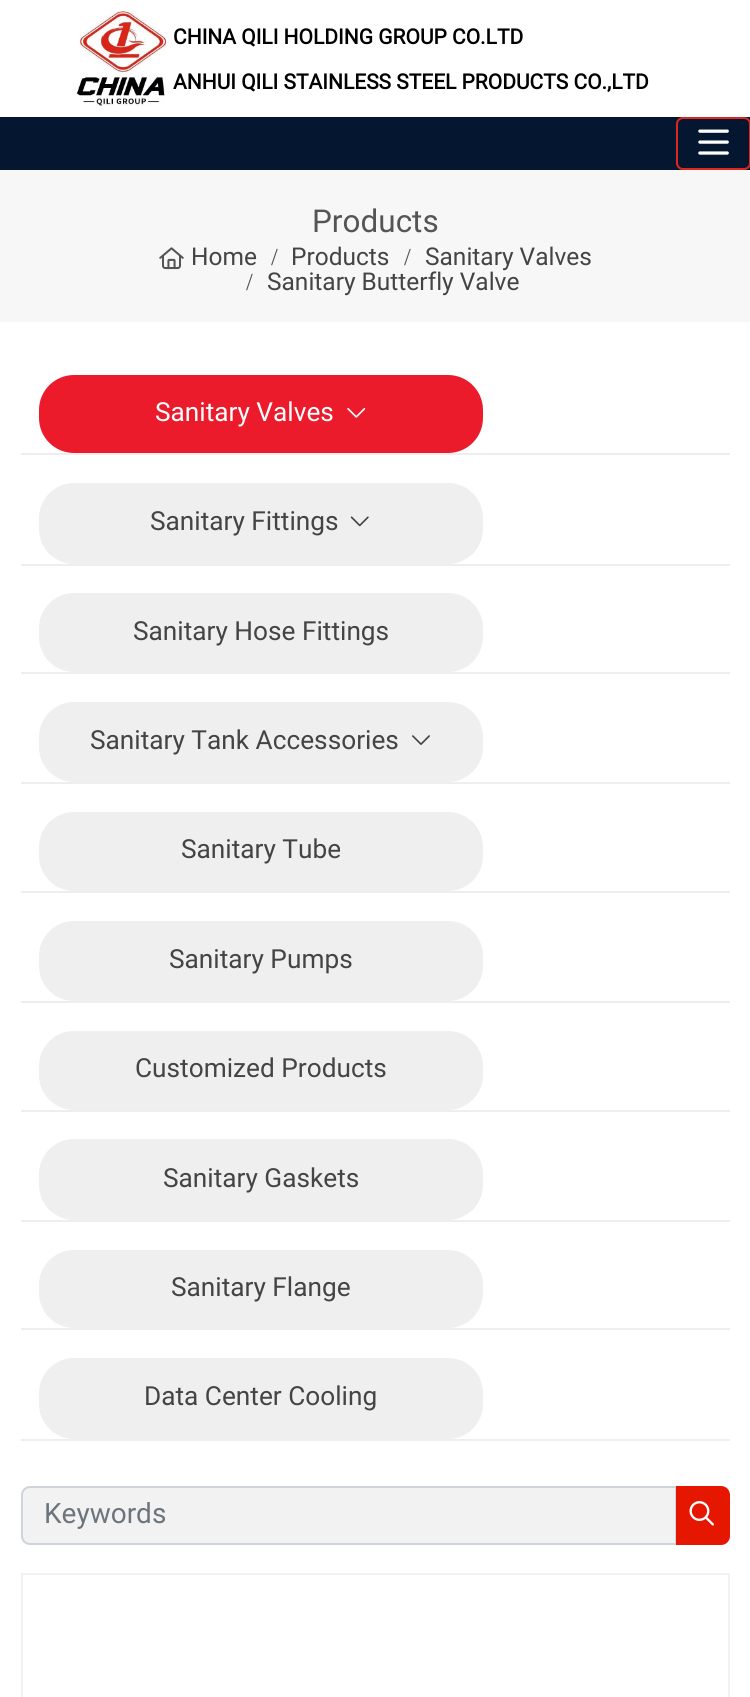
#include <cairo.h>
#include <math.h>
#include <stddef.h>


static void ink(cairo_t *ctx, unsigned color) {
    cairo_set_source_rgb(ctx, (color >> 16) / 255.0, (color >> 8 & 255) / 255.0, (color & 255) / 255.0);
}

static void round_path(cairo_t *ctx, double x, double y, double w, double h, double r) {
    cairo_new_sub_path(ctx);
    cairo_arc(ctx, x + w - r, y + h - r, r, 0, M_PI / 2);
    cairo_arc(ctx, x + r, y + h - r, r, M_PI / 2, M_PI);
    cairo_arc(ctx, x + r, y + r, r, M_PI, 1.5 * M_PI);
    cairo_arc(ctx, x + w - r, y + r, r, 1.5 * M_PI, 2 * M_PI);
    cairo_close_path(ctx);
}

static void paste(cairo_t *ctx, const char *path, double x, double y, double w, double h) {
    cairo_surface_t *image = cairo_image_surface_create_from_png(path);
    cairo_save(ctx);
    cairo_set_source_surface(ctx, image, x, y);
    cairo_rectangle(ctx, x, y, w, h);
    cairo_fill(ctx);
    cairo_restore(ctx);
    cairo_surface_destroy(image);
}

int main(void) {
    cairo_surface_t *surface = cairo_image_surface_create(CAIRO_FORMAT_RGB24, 750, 1697);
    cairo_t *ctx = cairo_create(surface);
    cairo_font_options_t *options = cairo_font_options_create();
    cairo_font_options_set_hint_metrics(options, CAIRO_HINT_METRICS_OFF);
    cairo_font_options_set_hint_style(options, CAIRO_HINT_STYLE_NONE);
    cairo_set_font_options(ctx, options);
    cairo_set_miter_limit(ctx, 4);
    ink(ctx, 0xFFFFFF);
    cairo_paint(ctx);
    paste(ctx, "media/1.png", 76, 10, 91, 96);
    cairo_select_font_face(ctx, "Roboto", CAIRO_FONT_SLANT_NORMAL, CAIRO_FONT_WEIGHT_BOLD);
    cairo_set_font_size(ctx, 21);
    ink(ctx, 0x000000);
    cairo_move_to(ctx, 173, 44);
    cairo_show_text(ctx, "CHINA QILI HOLDING GROUP CO.LTD");
    cairo_move_to(ctx, 173, 89);
    cairo_show_text(ctx, "ANHUI QILI STAINLESS STEEL PRODUCTS CO.,LTD");
    ink(ctx, 0x051630);
    cairo_rectangle(ctx, 0, 117, 750, 53);
    cairo_fill(ctx);
    round_path(ctx, 677, 118, 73, 51, 6);
    ink(ctx, 0xDD2821);
    cairo_stroke(ctx);
    paste(ctx, "media/2.png", 698, 129, 31, 26);
    ink(ctx, 0xF7F7F7);
    cairo_rectangle(ctx, 0, 170, 750, 152);
    cairo_fill(ctx);
    cairo_select_font_face(ctx, "Roboto", CAIRO_FONT_SLANT_NORMAL, CAIRO_FONT_WEIGHT_NORMAL);
    cairo_set_font_size(ctx, 31.5);
    ink(ctx, 0x555555);
    cairo_move_to(ctx, 312, 232);
    cairo_show_text(ctx, "Products");
    paste(ctx, "media/3.png", 159, 247, 25, 23);
    cairo_set_font_size(ctx, 24.5);
    ink(ctx, 0x444444);
    cairo_move_to(ctx, 191, 265);
    cairo_show_text(ctx, "Home");
    cairo_select_font_face(ctx, "Liberation Serif", CAIRO_FONT_SLANT_NORMAL, CAIRO_FONT_WEIGHT_NORMAL);
    ink(ctx, 0x555555);
    cairo_move_to(ctx, 271, 265);
    cairo_show_text(ctx, "/");
    cairo_select_font_face(ctx, "Roboto", CAIRO_FONT_SLANT_NORMAL, CAIRO_FONT_WEIGHT_NORMAL);
    ink(ctx, 0x444444);
    cairo_move_to(ctx, 291, 265);
    cairo_show_text(ctx, "Products");
    cairo_select_font_face(ctx, "Liberation Serif", CAIRO_FONT_SLANT_NORMAL, CAIRO_FONT_WEIGHT_NORMAL);
    ink(ctx, 0x555555);
    cairo_move_to(ctx, 404, 265);
    cairo_show_text(ctx, "/");
    cairo_select_font_face(ctx, "Roboto", CAIRO_FONT_SLANT_NORMAL, CAIRO_FONT_WEIGHT_NORMAL);
    ink(ctx, 0x444444);
    cairo_move_to(ctx, 425, 265);
    cairo_show_text(ctx, "Sanitary Valves");
    cairo_select_font_face(ctx, "Liberation Serif", CAIRO_FONT_SLANT_NORMAL, CAIRO_FONT_WEIGHT_NORMAL);
    ink(ctx, 0x555555);
    cairo_move_to(ctx, 246, 290);
    cairo_show_text(ctx, "/");
    cairo_select_font_face(ctx, "Roboto", CAIRO_FONT_SLANT_NORMAL, CAIRO_FONT_WEIGHT_NORMAL);
    ink(ctx, 0x444444);
    cairo_move_to(ctx, 267, 290);
    cairo_show_text(ctx, "Sanitary Butterfly Valve");
    ink(ctx, 0xEEEEEE);
    cairo_rectangle(ctx, 21, 453, 709, 2);
    cairo_fill(ctx);
    ink(ctx, 0xEB1B2B);
    round_path(ctx, 39, 375, 444, 78, 35);
    cairo_fill(ctx);
    cairo_set_font_size(ctx, 26.25);
    ink(ctx, 0xFFFFFF);
    cairo_move_to(ctx, 155, 421);
    cairo_show_text(ctx, "Sanitary Valves");
    paste(ctx, "media/4.png", 347, 408, 19, 10);
    ink(ctx, 0xEEEEEE);
    cairo_rectangle(ctx, 21, 564, 709, 2);
    cairo_fill(ctx);
    ink(ctx, 0xEFEFEF);
    round_path(ctx, 39, 483, 444, 81, 35);
    cairo_fill(ctx);
    ink(ctx, 0x444444);
    cairo_move_to(ctx, 150, 530);
    cairo_show_text(ctx, "Sanitary Fittings");
    paste(ctx, "media/5.png", 350, 516, 19, 11);
    ink(ctx, 0xEEEEEE);
    cairo_rectangle(ctx, 21, 672, 709, 2);
    cairo_fill(ctx);
    ink(ctx, 0xEFEFEF);
    round_path(ctx, 39, 593, 444, 79, 35);
    cairo_fill(ctx);
    ink(ctx, 0x444444);
    cairo_move_to(ctx, 133, 640);
    cairo_show_text(ctx, "Sanitary Hose Fittings");
    ink(ctx, 0xEEEEEE);
    cairo_rectangle(ctx, 21, 782, 709, 2);
    cairo_fill(ctx);
    ink(ctx, 0xEFEFEF);
    round_path(ctx, 39, 702, 444, 80, 35);
    cairo_fill(ctx);
    ink(ctx, 0x444444);
    cairo_move_to(ctx, 90, 749);
    cairo_show_text(ctx, "Sanitary Tank Accessories");
    paste(ctx, "media/6.png", 412, 735, 18, 10);
    ink(ctx, 0xEEEEEE);
    cairo_rectangle(ctx, 21, 891, 709, 2);
    cairo_fill(ctx);
    ink(ctx, 0xEFEFEF);
    round_path(ctx, 39, 812, 444, 79, 35);
    cairo_fill(ctx);
    ink(ctx, 0x444444);
    cairo_move_to(ctx, 181, 858);
    cairo_show_text(ctx, "Sanitary Tube");
    ink(ctx, 0xEEEEEE);
    cairo_rectangle(ctx, 21, 1001, 709, 2);
    cairo_fill(ctx);
    ink(ctx, 0xEFEFEF);
    round_path(ctx, 39, 921, 444, 80, 35);
    cairo_fill(ctx);
    ink(ctx, 0x444444);
    cairo_move_to(ctx, 169, 968);
    cairo_show_text(ctx, "Sanitary Pumps");
    ink(ctx, 0xEEEEEE);
    cairo_rectangle(ctx, 21, 1110, 709, 2);
    cairo_fill(ctx);
    ink(ctx, 0xEFEFEF);
    round_path(ctx, 39, 1031, 444, 79, 35);
    cairo_fill(ctx);
    ink(ctx, 0x444444);
    cairo_move_to(ctx, 135, 1077);
    cairo_show_text(ctx, "Customized Products");
    ink(ctx, 0xEEEEEE);
    cairo_rectangle(ctx, 21, 1220, 709, 2);
    cairo_fill(ctx);
    ink(ctx, 0xEFEFEF);
    round_path(ctx, 39, 1139, 444, 81, 35);
    cairo_fill(ctx);
    ink(ctx, 0x444444);
    cairo_move_to(ctx, 163, 1187);
    cairo_show_text(ctx, "Sanitary Gaskets");
    ink(ctx, 0xEEEEEE);
    cairo_rectangle(ctx, 21, 1328, 709, 2);
    cairo_fill(ctx);
    ink(ctx, 0xEFEFEF);
    round_path(ctx, 39, 1250, 444, 78, 35);
    cairo_fill(ctx);
    ink(ctx, 0x444444);
    cairo_move_to(ctx, 171, 1296);
    cairo_show_text(ctx, "Sanitary Flange");
    ink(ctx, 0xEEEEEE);
    cairo_rectangle(ctx, 21, 1439, 709, 2);
    cairo_fill(ctx);
    ink(ctx, 0xEFEFEF);
    round_path(ctx, 39, 1358, 444, 81, 35);
    cairo_fill(ctx);
    ink(ctx, 0x444444);
    cairo_move_to(ctx, 144, 1405);
    cairo_show_text(ctx, "Data Center Cooling");
    ink(ctx, 0xF2F2F2);
    cairo_new_path(ctx);
    cairo_move_to(ctx, 30, 1487);
    cairo_line_to(ctx, 676, 1487);
    cairo_line_to(ctx, 676, 1544);
    cairo_line_to(ctx, 30, 1544);
    cairo_curve_to(ctx, 25.5, 1544, 22, 1540.5, 22, 1536);
    cairo_line_to(ctx, 22, 1495);
    cairo_curve_to(ctx, 22, 1490.5, 25.5, 1487, 30, 1487);
    cairo_close_path(ctx);
    cairo_fill_preserve(ctx);
    ink(ctx, 0xCED4DA);
    cairo_stroke(ctx);
    cairo_set_font_size(ctx, 28);
    ink(ctx, 0x6C757D);
    cairo_move_to(ctx, 44, 1523);
    cairo_show_text(ctx, "Keywords");
    ink(ctx, 0xE51700);
    cairo_new_path(ctx);
    cairo_move_to(ctx, 676, 1486);
    cairo_line_to(ctx, 721, 1486);
    cairo_curve_to(ctx, 726, 1486, 730, 1490, 730, 1495);
    cairo_line_to(ctx, 730, 1536);
    cairo_curve_to(ctx, 730, 1541, 726, 1545, 721, 1545);
    cairo_line_to(ctx, 676, 1545);
    cairo_close_path(ctx);
    cairo_fill(ctx);
    paste(ctx, "media/7.png", 689, 1501, 25, 25);
    cairo_rectangle(ctx, 22, 1574, 707, 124);
    ink(ctx, 0xF2F2F2);
    cairo_stroke(ctx);
    cairo_surface_write_to_png(surface, "image.png");
    cairo_font_options_destroy(options);
    cairo_destroy(ctx);
    cairo_surface_destroy(surface);
    return 0;
}
